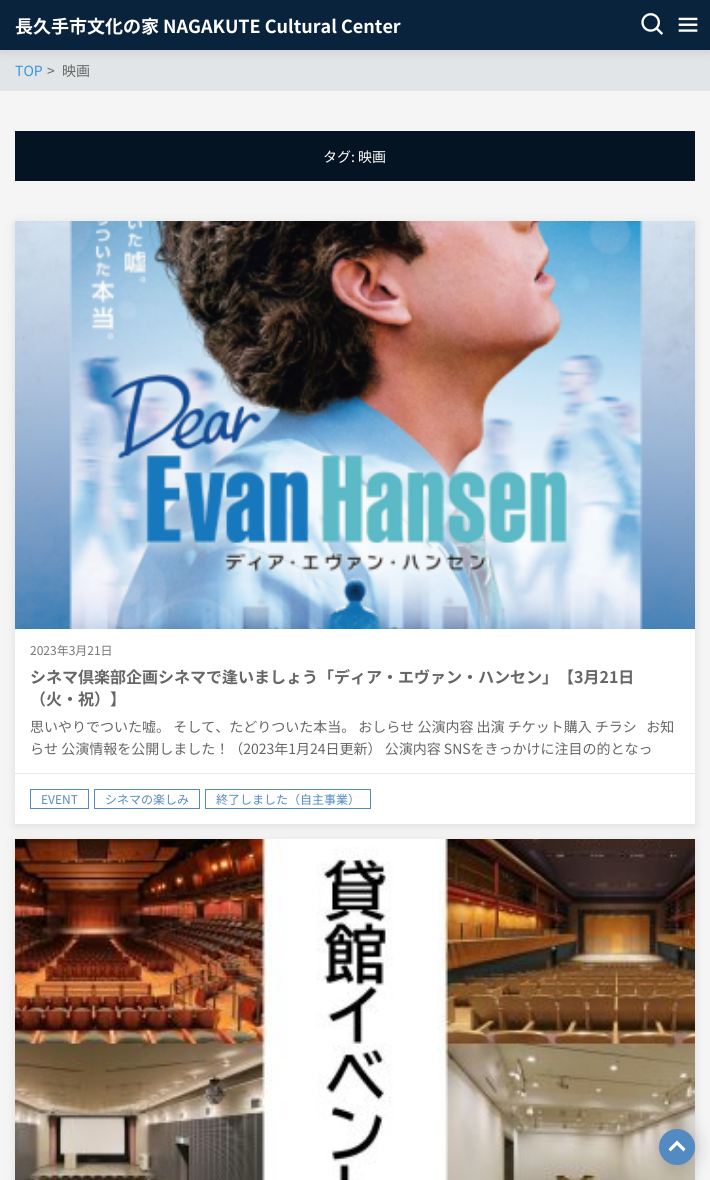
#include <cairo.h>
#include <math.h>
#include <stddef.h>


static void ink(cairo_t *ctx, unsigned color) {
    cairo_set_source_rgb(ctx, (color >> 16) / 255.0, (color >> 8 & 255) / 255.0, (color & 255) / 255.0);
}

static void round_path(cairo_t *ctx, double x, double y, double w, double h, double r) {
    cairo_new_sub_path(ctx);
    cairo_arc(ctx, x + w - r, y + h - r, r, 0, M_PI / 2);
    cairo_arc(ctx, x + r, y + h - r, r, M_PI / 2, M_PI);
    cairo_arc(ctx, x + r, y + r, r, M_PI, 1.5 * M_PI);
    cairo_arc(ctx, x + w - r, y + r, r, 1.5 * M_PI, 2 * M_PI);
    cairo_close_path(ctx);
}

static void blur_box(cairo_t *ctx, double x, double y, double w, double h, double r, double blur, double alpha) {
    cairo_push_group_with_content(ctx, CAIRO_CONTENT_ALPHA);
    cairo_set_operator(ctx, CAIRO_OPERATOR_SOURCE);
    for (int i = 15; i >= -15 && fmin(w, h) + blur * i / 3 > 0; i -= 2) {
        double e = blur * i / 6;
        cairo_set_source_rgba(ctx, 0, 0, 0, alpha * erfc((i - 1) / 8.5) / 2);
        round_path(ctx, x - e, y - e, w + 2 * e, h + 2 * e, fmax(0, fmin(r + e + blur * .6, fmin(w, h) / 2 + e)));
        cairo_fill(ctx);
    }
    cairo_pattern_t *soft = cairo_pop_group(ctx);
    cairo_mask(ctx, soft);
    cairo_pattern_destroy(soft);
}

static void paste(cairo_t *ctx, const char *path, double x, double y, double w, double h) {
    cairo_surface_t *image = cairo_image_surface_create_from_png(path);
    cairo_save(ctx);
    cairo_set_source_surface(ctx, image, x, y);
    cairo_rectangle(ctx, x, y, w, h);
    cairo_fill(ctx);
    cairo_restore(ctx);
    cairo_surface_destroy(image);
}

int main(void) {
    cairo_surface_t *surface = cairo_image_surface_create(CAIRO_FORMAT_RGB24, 710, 1180);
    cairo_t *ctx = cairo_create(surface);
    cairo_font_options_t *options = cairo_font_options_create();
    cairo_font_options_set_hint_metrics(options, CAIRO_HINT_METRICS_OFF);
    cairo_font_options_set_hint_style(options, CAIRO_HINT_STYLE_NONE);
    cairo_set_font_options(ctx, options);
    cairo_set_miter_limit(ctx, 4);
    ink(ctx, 0xF5F5F5);
    cairo_paint(ctx);
    ink(ctx, 0xE1E5E7);
    cairo_rectangle(ctx, 0, 50, 710, 41);
    cairo_fill(ctx);
    ink(ctx, 0x000000);
    blur_box(ctx, 0, 2, 710, 50, 0, 5, 0.1);
    ink(ctx, 0x09233D);
    cairo_rectangle(ctx, 0, 0, 710, 50);
    cairo_fill(ctx);
    cairo_select_font_face(ctx, "Noto Sans JP", CAIRO_FONT_SLANT_NORMAL, CAIRO_FONT_WEIGHT_BOLD);
    cairo_set_font_size(ctx, 18);
    ink(ctx, 0xFFFFFF);
    cairo_move_to(ctx, 15, 33);
    cairo_show_text(ctx, "長久手市文化の家 NAGAKUTE Cultural Center");
    paste(ctx, "media/1.png", 641, 13, 22, 22);
    paste(ctx, "media/2.png", 678, 17, 20, 15);
    cairo_select_font_face(ctx, "Noto Sans JP", CAIRO_FONT_SLANT_NORMAL, CAIRO_FONT_WEIGHT_NORMAL);
    cairo_set_font_size(ctx, 14);
    ink(ctx, 0x3398DB);
    cairo_move_to(ctx, 15, 76);
    cairo_show_text(ctx, "TOP");
    ink(ctx, 0x666666);
    cairo_move_to(ctx, 47, 76);
    cairo_show_text(ctx, ">");
    cairo_move_to(ctx, 62, 76);
    cairo_show_text(ctx, "映画");
    ink(ctx, 0x051423);
    cairo_rectangle(ctx, 15, 131, 680, 50);
    cairo_fill(ctx);
    ink(ctx, 0xFFFFFF);
    cairo_move_to(ctx, 323, 162);
    cairo_show_text(ctx, "タグ: 映画");
    ink(ctx, 0x000000);
    blur_box(ctx, 15, 223, 680, 603, 0, 5, 0.1);
    ink(ctx, 0xFFFFFF);
    cairo_rectangle(ctx, 15, 629, 680, 195);
    cairo_fill(ctx);
    paste(ctx, "media/3.png", 15, 221, 680, 408);
    cairo_set_font_size(ctx, 12);
    ink(ctx, 0x757575);
    cairo_move_to(ctx, 30, 655);
    cairo_show_text(ctx, "2023年3月21日");
    cairo_select_font_face(ctx, "Noto Sans JP", CAIRO_FONT_SLANT_NORMAL, CAIRO_FONT_WEIGHT_BOLD);
    cairo_set_font_size(ctx, 16);
    ink(ctx, 0x666666);
    cairo_move_to(ctx, 30, 683);
    cairo_show_text(ctx, "シネマ倶楽部企画シネマで逢いましょう「ディア・エヴァン・ハンセン」【3月21日");
    cairo_move_to(ctx, 30, 705);
    cairo_show_text(ctx, "（火・祝）】");
    cairo_select_font_face(ctx, "Noto Sans JP", CAIRO_FONT_SLANT_NORMAL, CAIRO_FONT_WEIGHT_NORMAL);
    cairo_set_font_size(ctx, 14);
    cairo_move_to(ctx, 30, 732);
    cairo_show_text(ctx, "思いやりでついた嘘。 そして、たどりついた本当。 おしらせ 公演内容 出演 チケット購入 チラシ   お知");
    cairo_move_to(ctx, 30, 754);
    cairo_show_text(ctx, "らせ 公演情報を公開しました！（2023年1月24日更新） 公演内容 SNSをきっかけに注目の的となっ");
    ink(ctx, 0xE8E8E8);
    cairo_rectangle(ctx, 15, 773, 680, 1);
    cairo_fill(ctx);
    cairo_rectangle(ctx, 30.5, 789.5, 58, 19);
    ink(ctx, 0x538AC2);
    cairo_set_line_width(ctx, 1);
    cairo_stroke(ctx);
    cairo_set_font_size(ctx, 12);
    cairo_move_to(ctx, 41, 804);
    cairo_show_text(ctx, "EVENT");
    cairo_rectangle(ctx, 94.5, 789.5, 105, 19);
    cairo_stroke(ctx);
    cairo_move_to(ctx, 105, 804);
    cairo_show_text(ctx, "シネマの楽しみ");
    cairo_rectangle(ctx, 205.5, 789.5, 165, 19);
    cairo_stroke(ctx);
    cairo_move_to(ctx, 216, 804);
    cairo_show_text(ctx, "終了しました（自主事業）");
    ink(ctx, 0x000000);
    blur_box(ctx, 15, 841, 680, 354, 0, 5, 0.1);
    paste(ctx, "media/4.png", 15, 839, 680, 341);
    blur_box(ctx, 659, 1129, 36, 36, 18, 10, 0.2);
    ink(ctx, 0x538AC2);
    cairo_arc(ctx, 677, 1147, 18, 0, 2 * M_PI);
    cairo_fill(ctx);
    ink(ctx, 0xFFFFFF);
    cairo_new_path(ctx);
    cairo_move_to(ctx, 668.5, 1149);
    cairo_line_to(ctx, 670.5, 1151.5);
    cairo_line_to(ctx, 677, 1145);
    cairo_line_to(ctx, 683.5, 1151.5);
    cairo_line_to(ctx, 685.5, 1149);
    cairo_line_to(ctx, 677, 1140.5);
    cairo_close_path(ctx);
    cairo_fill(ctx);
    cairo_surface_write_to_png(surface, "image.png");
    cairo_font_options_destroy(options);
    cairo_destroy(ctx);
    cairo_surface_destroy(surface);
    return 0;
}
